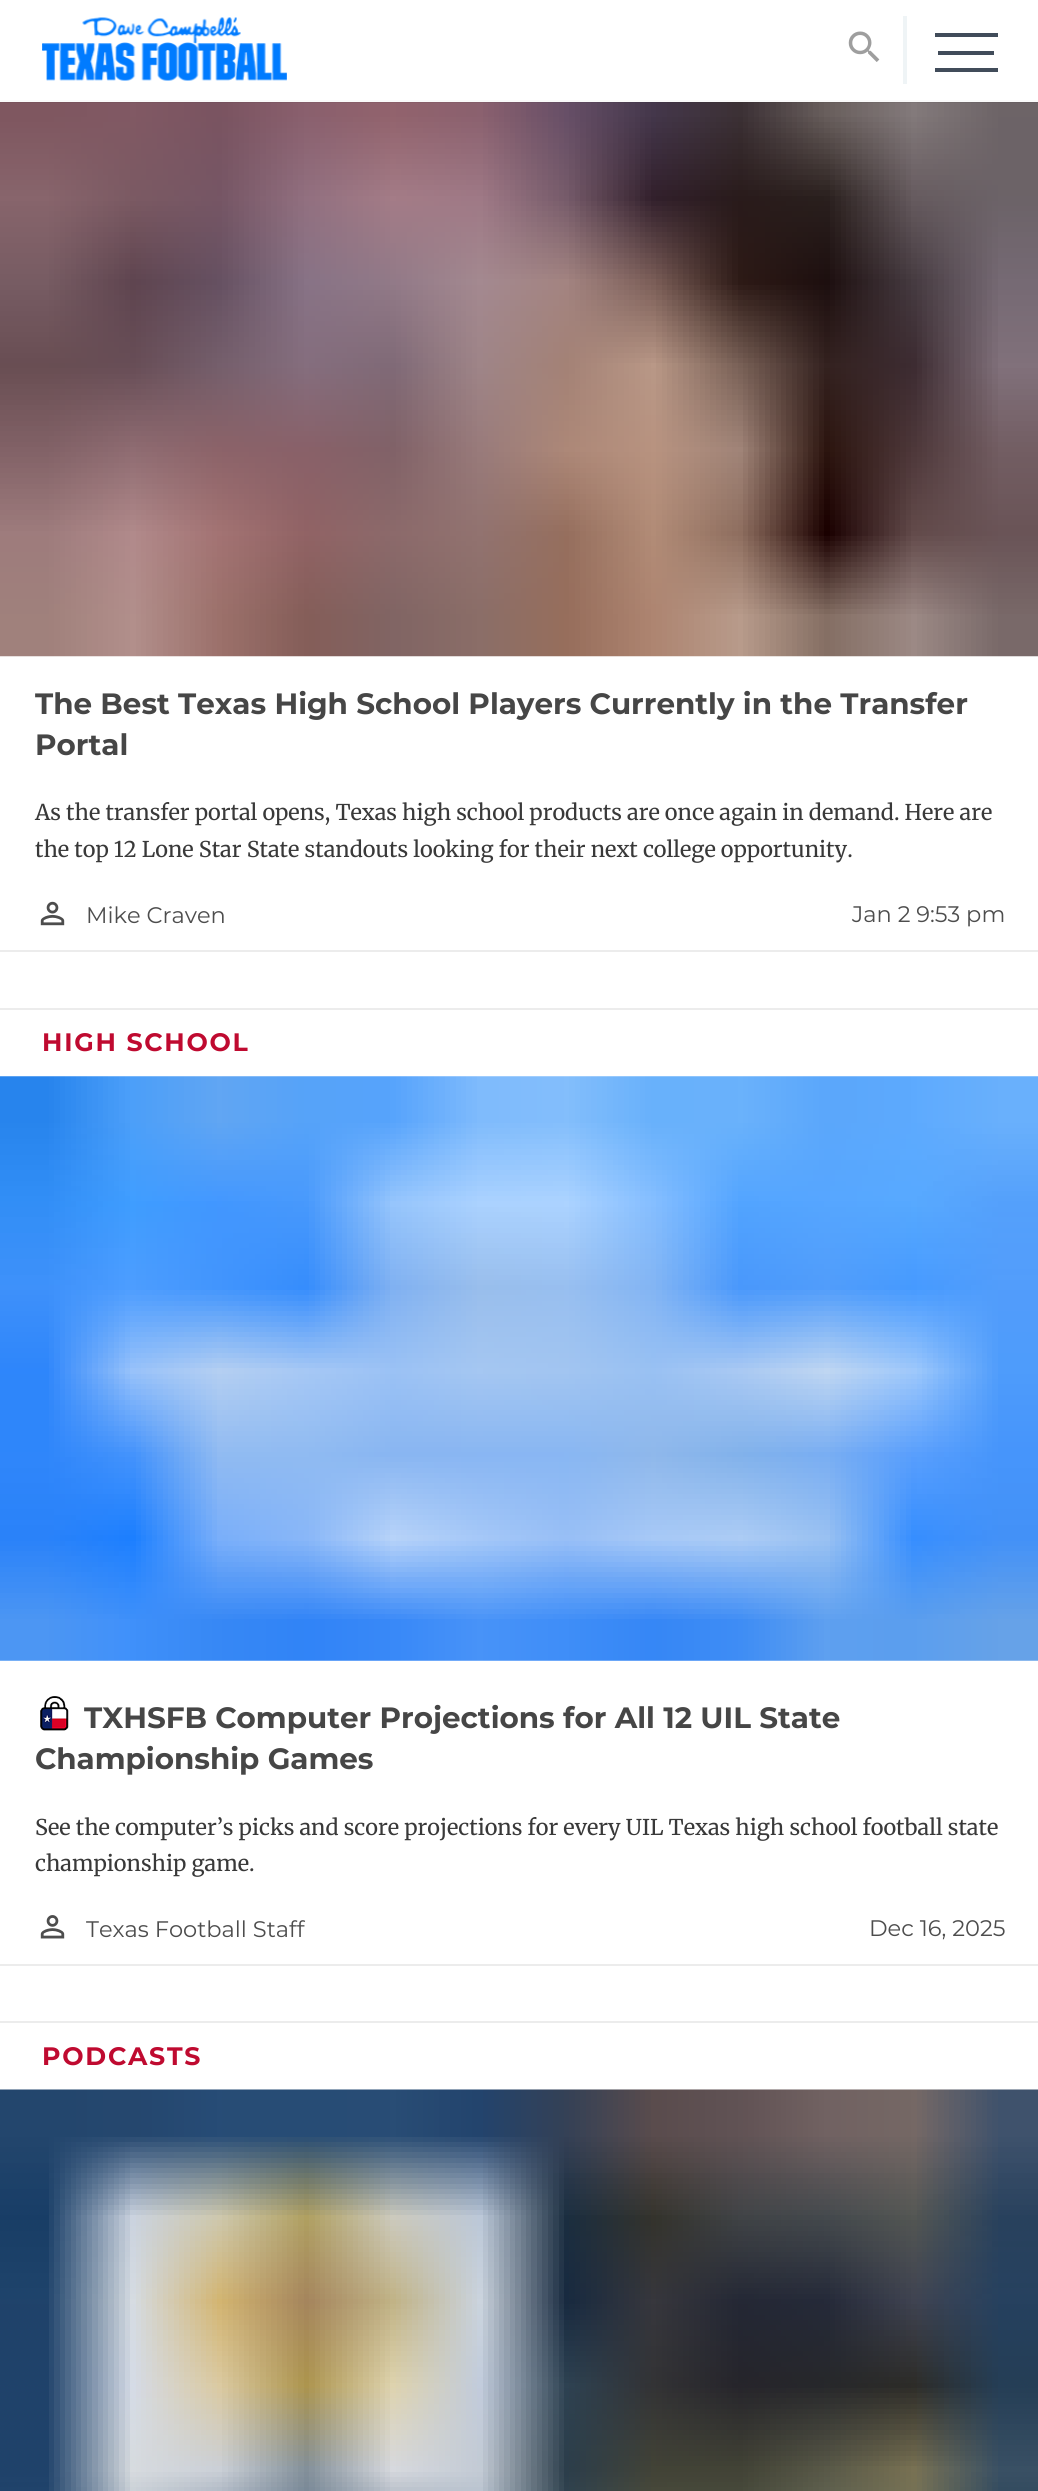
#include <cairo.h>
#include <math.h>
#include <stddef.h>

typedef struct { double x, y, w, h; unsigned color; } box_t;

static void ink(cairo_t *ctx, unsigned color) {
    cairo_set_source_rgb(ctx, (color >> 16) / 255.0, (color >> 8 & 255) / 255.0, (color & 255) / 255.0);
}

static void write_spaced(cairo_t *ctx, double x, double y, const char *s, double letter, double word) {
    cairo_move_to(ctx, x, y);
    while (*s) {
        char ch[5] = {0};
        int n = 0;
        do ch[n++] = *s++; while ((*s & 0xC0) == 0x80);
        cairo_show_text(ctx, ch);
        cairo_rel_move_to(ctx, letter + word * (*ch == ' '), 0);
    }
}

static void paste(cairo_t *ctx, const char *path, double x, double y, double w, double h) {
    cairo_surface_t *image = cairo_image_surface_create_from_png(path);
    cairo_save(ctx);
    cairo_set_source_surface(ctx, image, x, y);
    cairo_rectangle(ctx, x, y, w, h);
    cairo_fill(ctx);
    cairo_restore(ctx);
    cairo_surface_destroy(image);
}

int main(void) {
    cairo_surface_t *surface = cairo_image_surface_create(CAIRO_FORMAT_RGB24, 1038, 2491);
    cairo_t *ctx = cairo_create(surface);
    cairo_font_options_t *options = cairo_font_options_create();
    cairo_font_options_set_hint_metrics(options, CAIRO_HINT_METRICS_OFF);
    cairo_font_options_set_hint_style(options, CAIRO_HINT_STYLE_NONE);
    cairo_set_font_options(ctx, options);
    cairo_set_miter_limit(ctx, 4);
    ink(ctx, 0xFFFFFF);
    cairo_paint(ctx);
    paste(ctx, "media/3.png", 0, 102, 1038, 555);
    cairo_set_source_rgba(ctx, 0.133, 0.133, 0.133, 0.07);
    cairo_new_path(ctx);
    cairo_move_to(ctx, 0, 102);
    cairo_line_to(ctx, 0, 103);
    cairo_line_to(ctx, 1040, 103);
    cairo_line_to(ctx, 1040, 2);
    cairo_line_to(ctx, 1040, 102);
    cairo_close_path(ctx);
    cairo_fill(ctx);
    ink(ctx, 0xFAFAFA);
    cairo_rectangle(ctx, 0, 100, 1038, 2);
    cairo_fill(ctx);
    paste(ctx, "media/1.png", 42, 17, 245, 64);
    paste(ctx, "media/2.png", 848, 31, 32, 31);
    {
        static const box_t items[] = {
            {903, 16, 4, 68, 0xEFF4F6},
            {935, 33, 63, 4, 0x414C5A},
            {938, 51, 56, 4, 0x414C5A},
            {935, 68, 63, 4, 0x414C5A},
            {0, 950, 1038, 2, 0xECECEC},
        };
        for (size_t i = 0; i < sizeof items / sizeof *items; i++) {
            ink(ctx, items[i].color);
            cairo_rectangle(ctx, items[i].x, items[i].y, items[i].w, items[i].h);
            cairo_fill(ctx);
        }
    }
    cairo_select_font_face(ctx, "Montserrat", CAIRO_FONT_SLANT_NORMAL, CAIRO_FONT_WEIGHT_BOLD);
    cairo_set_font_size(ctx, 29.4);
    ink(ctx, 0x464646);
    cairo_move_to(ctx, 35, 714);
    cairo_show_text(ctx, "The Best Texas High School Players Currently in the Transfer");
    cairo_move_to(ctx, 35, 755);
    cairo_show_text(ctx, "Portal");
    cairo_select_font_face(ctx, "Merriweather", CAIRO_FONT_SLANT_NORMAL, CAIRO_FONT_WEIGHT_NORMAL);
    cairo_set_font_size(ctx, 21.7);
    ink(ctx, 0x393939);
    cairo_move_to(ctx, 35, 820);
    cairo_show_text(ctx, "As the transfer portal opens, Texas high school products are once again in demand. Here are");
    cairo_move_to(ctx, 35, 857);
    cairo_show_text(ctx, "the top 12 Lone Star State standouts looking for their next college opportunity.");
    paste(ctx, "media/4.png", 40, 901, 25, 25);
    cairo_select_font_face(ctx, "Montserrat", CAIRO_FONT_SLANT_NORMAL, CAIRO_FONT_WEIGHT_NORMAL);
    cairo_set_font_size(ctx, 22.5);
    ink(ctx, 0x4D4D4D);
    cairo_move_to(ctx, 86, 923);
    cairo_show_text(ctx, "Mike Craven");
    cairo_move_to(ctx, 852, 922);
    cairo_show_text(ctx, "Jan 2 9:53 pm");
    ink(ctx, 0xECECEC);
    cairo_rectangle(ctx, 0, 1008, 1038, 2);
    cairo_fill(ctx);
    cairo_rectangle(ctx, 0, 1964, 1038, 2);
    cairo_fill(ctx);
    cairo_select_font_face(ctx, "Montserrat", CAIRO_FONT_SLANT_NORMAL, CAIRO_FONT_WEIGHT_BOLD);
    cairo_set_font_size(ctx, 25.25);
    ink(ctx, 0xBF0A30);
    write_spaced(ctx, 42, 1051, "HIGH SCHOOL", 1.75, 0);
    paste(ctx, "media/5.png", 0, 1076, 1038, 585);
    paste(ctx, "media/6.png", 40, 1696, 29, 35);
    cairo_set_font_size(ctx, 29.4);
    ink(ctx, 0x464646);
    cairo_move_to(ctx, 84, 1728);
    cairo_show_text(ctx, "TXHSFB Computer Projections for All 12 UIL State");
    cairo_move_to(ctx, 35, 1769);
    cairo_show_text(ctx, "Championship Games");
    cairo_select_font_face(ctx, "Merriweather", CAIRO_FONT_SLANT_NORMAL, CAIRO_FONT_WEIGHT_NORMAL);
    cairo_set_font_size(ctx, 21.7);
    ink(ctx, 0x393939);
    cairo_move_to(ctx, 35, 1835);
    cairo_show_text(ctx, "See the computer’s picks and score projections for every UIL Texas high school football state");
    cairo_move_to(ctx, 35, 1871);
    cairo_show_text(ctx, "championship game.");
    paste(ctx, "media/7.png", 40, 1915, 25, 24);
    cairo_select_font_face(ctx, "Montserrat", CAIRO_FONT_SLANT_NORMAL, CAIRO_FONT_WEIGHT_NORMAL);
    cairo_set_font_size(ctx, 22.5);
    ink(ctx, 0x4D4D4D);
    cairo_move_to(ctx, 86, 1937);
    cairo_show_text(ctx, "Texas Football Staff");
    cairo_move_to(ctx, 869, 1936);
    cairo_show_text(ctx, "Dec 16, 2025");
    ink(ctx, 0xECECEC);
    cairo_rectangle(ctx, 0, 2021, 1038, 2);
    cairo_fill(ctx);
    cairo_select_font_face(ctx, "Montserrat", CAIRO_FONT_SLANT_NORMAL, CAIRO_FONT_WEIGHT_BOLD);
    cairo_set_font_size(ctx, 25.25);
    ink(ctx, 0xBF0A30);
    write_spaced(ctx, 42, 2065, "PODCASTS", 1.75, 0);
    paste(ctx, "media/8.png", 0, 2089, 1038, 402);
    cairo_surface_write_to_png(surface, "image.png");
    cairo_font_options_destroy(options);
    cairo_destroy(ctx);
    cairo_surface_destroy(surface);
    return 0;
}
